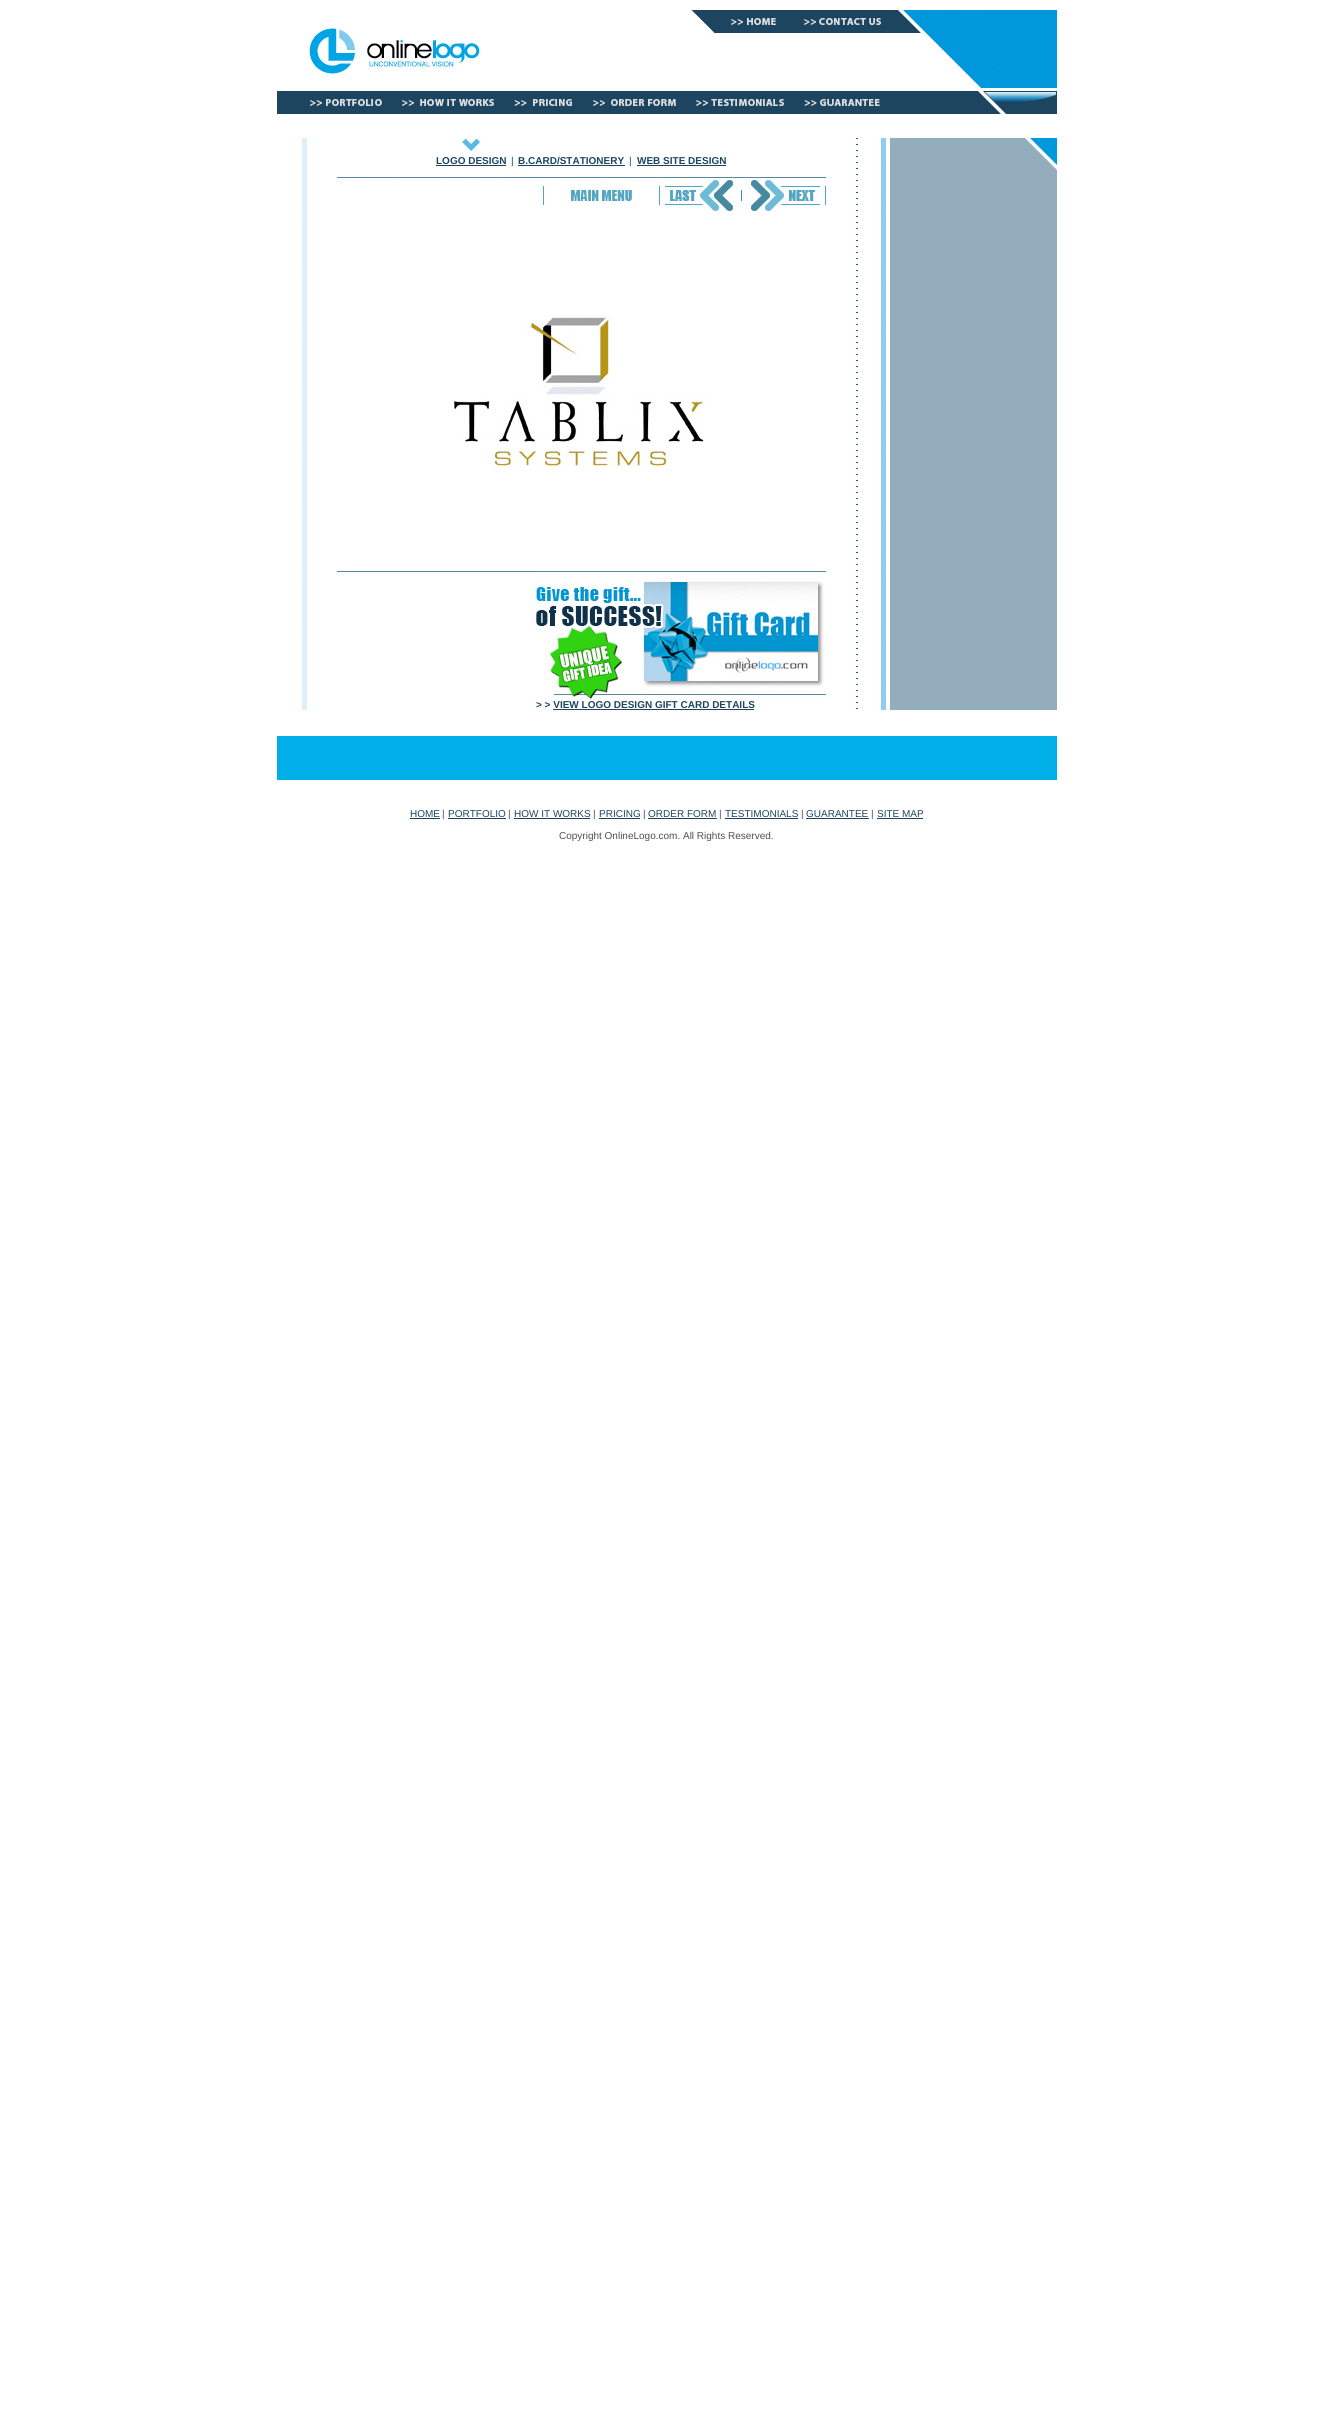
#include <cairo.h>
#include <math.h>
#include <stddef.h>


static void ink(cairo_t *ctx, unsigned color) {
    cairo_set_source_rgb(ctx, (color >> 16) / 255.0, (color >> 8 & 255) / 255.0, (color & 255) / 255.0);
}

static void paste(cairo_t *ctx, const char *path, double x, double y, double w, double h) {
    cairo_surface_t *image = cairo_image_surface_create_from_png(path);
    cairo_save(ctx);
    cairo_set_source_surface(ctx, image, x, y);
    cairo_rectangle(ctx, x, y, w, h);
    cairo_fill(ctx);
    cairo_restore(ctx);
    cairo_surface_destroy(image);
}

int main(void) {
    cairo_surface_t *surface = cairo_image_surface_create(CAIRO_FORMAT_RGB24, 1333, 2421);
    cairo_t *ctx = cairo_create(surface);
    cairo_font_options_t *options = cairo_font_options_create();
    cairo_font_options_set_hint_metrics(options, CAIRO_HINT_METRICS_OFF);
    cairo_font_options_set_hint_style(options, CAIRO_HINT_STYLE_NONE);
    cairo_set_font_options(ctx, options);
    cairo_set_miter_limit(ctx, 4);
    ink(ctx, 0xFFFFFF);
    cairo_paint(ctx);
    paste(ctx, "media/1.png", 309, 27, 174, 47);
    paste(ctx, "media/2.png", 691, 10, 23, 23);
    ink(ctx, 0x1D455F);
    cairo_rectangle(ctx, 714, 10, 184, 23);
    cairo_fill(ctx);
    paste(ctx, "media/3.png", 730, 18, 48, 8);
    paste(ctx, "media/4.png", 799, 18, 88, 8);
    paste(ctx, "media/5.png", 898, 10, 159, 78);
    cairo_rectangle(ctx, 277, 91, 780, 23);
    cairo_fill(ctx);
    paste(ctx, "media/6.png", 310, 99, 72, 7);
    paste(ctx, "media/7.png", 399, 99, 96, 8);
    paste(ctx, "media/8.png", 511, 99, 64, 8);
    paste(ctx, "media/9.png", 591, 99, 88, 8);
    paste(ctx, "media/10.png", 695, 99, 95, 8);
    paste(ctx, "media/11.png", 801, 99, 80, 8);
    paste(ctx, "media/12.png", 978, 91, 78, 23);
    paste(ctx, "media/13.png", 302, 138, 5, 572);
    paste(ctx, "media/14.png", 462, 138, 18, 16);
    cairo_select_font_face(ctx, "Liberation Sans", CAIRO_FONT_SLANT_NORMAL, CAIRO_FONT_WEIGHT_BOLD);
    cairo_set_font_size(ctx, 10);
    cairo_move_to(ctx, 436, 164);
    cairo_show_text(ctx, "LOGO DESIGN");
    cairo_rectangle(ctx, 436, 165, 70, 1);
    cairo_fill(ctx);
    cairo_select_font_face(ctx, "Liberation Sans", CAIRO_FONT_SLANT_NORMAL, CAIRO_FONT_WEIGHT_NORMAL);
    cairo_move_to(ctx, 511, 164);
    cairo_show_text(ctx, "|");
    cairo_select_font_face(ctx, "Liberation Sans", CAIRO_FONT_SLANT_NORMAL, CAIRO_FONT_WEIGHT_BOLD);
    cairo_move_to(ctx, 518, 164);
    cairo_show_text(ctx, "B.CARD/STATIONERY");
    cairo_rectangle(ctx, 518, 165, 107, 1);
    cairo_fill(ctx);
    cairo_select_font_face(ctx, "Liberation Sans", CAIRO_FONT_SLANT_NORMAL, CAIRO_FONT_WEIGHT_NORMAL);
    cairo_move_to(ctx, 629, 164);
    cairo_show_text(ctx, "|");
    cairo_select_font_face(ctx, "Liberation Sans", CAIRO_FONT_SLANT_NORMAL, CAIRO_FONT_WEIGHT_BOLD);
    cairo_move_to(ctx, 637, 164);
    cairo_show_text(ctx, "WEB SITE DESIGN");
    cairo_rectangle(ctx, 637, 165, 89, 1);
    cairo_fill(ctx);
    paste(ctx, "media/15.png", 337, 177, 231, 32);
    paste(ctx, "media/16.png", 568, 177, 66, 24);
    ink(ctx, 0x5D879D);
    cairo_rectangle(ctx, 634, 177, 25, 1);
    cairo_fill(ctx);
    paste(ctx, "media/17.png", 659, 177, 82, 34);
    paste(ctx, "media/18.png", 741, 177, 85, 34);
    paste(ctx, "media/19.png", 454, 315, 254, 152);
    cairo_rectangle(ctx, 337, 571, 199, 1);
    cairo_fill(ctx);
    paste(ctx, "media/20.png", 536, 571, 290, 128);
    ink(ctx, 0x1D455F);
    cairo_move_to(ctx, 536, 708);
    cairo_show_text(ctx, "> > VIEW LOGO DESIGN GIFT CARD DETAILS");
    cairo_rectangle(ctx, 553, 709, 201, 1);
    cairo_fill(ctx);
    paste(ctx, "media/21.png", 850, 138, 207, 572);
    paste(ctx, "media/22.png", 1023, 138, 34, 32);
    ink(ctx, 0x00AFE8);
    cairo_rectangle(ctx, 277, 736, 780, 44);
    cairo_fill(ctx);
    cairo_select_font_face(ctx, "Liberation Sans", CAIRO_FONT_SLANT_NORMAL, CAIRO_FONT_WEIGHT_NORMAL);
    ink(ctx, 0x1D455F);
    cairo_move_to(ctx, 410, 817);
    cairo_show_text(ctx, "HOME");
    cairo_rectangle(ctx, 410, 818, 30, 1);
    cairo_fill(ctx);
    ink(ctx, 0x4E4E4E);
    cairo_move_to(ctx, 442, 817);
    cairo_show_text(ctx, "|");
    ink(ctx, 0x1D455F);
    cairo_move_to(ctx, 448, 817);
    cairo_show_text(ctx, "PORTFOLIO");
    cairo_rectangle(ctx, 448, 818, 58, 1);
    cairo_fill(ctx);
    ink(ctx, 0x4E4E4E);
    cairo_move_to(ctx, 508, 817);
    cairo_show_text(ctx, "|");
    ink(ctx, 0x1D455F);
    cairo_move_to(ctx, 514, 817);
    cairo_show_text(ctx, "HOW IT WORKS");
    cairo_rectangle(ctx, 514, 818, 76, 1);
    cairo_fill(ctx);
    ink(ctx, 0x4E4E4E);
    cairo_move_to(ctx, 593, 817);
    cairo_show_text(ctx, "|");
    ink(ctx, 0x1D455F);
    cairo_move_to(ctx, 599, 817);
    cairo_show_text(ctx, "PRICING");
    cairo_rectangle(ctx, 599, 818, 41, 1);
    cairo_fill(ctx);
    ink(ctx, 0x4E4E4E);
    cairo_move_to(ctx, 643, 817);
    cairo_show_text(ctx, "|");
    ink(ctx, 0x1D455F);
    cairo_move_to(ctx, 648, 817);
    cairo_show_text(ctx, "ORDER FORM");
    cairo_rectangle(ctx, 648, 818, 69, 1);
    cairo_fill(ctx);
    ink(ctx, 0x4E4E4E);
    cairo_move_to(ctx, 719, 817);
    cairo_show_text(ctx, "|");
    ink(ctx, 0x1D455F);
    cairo_move_to(ctx, 725, 817);
    cairo_show_text(ctx, "TESTIMONIALS");
    cairo_rectangle(ctx, 725, 818, 73, 1);
    cairo_fill(ctx);
    ink(ctx, 0x4E4E4E);
    cairo_move_to(ctx, 801, 817);
    cairo_show_text(ctx, "|");
    ink(ctx, 0x1D455F);
    cairo_move_to(ctx, 806, 817);
    cairo_show_text(ctx, "GUARANTEE");
    cairo_rectangle(ctx, 806, 818, 63, 1);
    cairo_fill(ctx);
    ink(ctx, 0x4E4E4E);
    cairo_move_to(ctx, 871, 817);
    cairo_show_text(ctx, "|");
    ink(ctx, 0x1D455F);
    cairo_move_to(ctx, 877, 817);
    cairo_show_text(ctx, "SITE MAP");
    cairo_rectangle(ctx, 877, 818, 46, 1);
    cairo_fill(ctx);
    ink(ctx, 0x4E4E4E);
    cairo_move_to(ctx, 559, 839);
    cairo_show_text(ctx, "Copyright OnlineLogo.com. All Rights Reserved.");
    cairo_surface_write_to_png(surface, "image.png");
    cairo_font_options_destroy(options);
    cairo_destroy(ctx);
    cairo_surface_destroy(surface);
    return 0;
}
